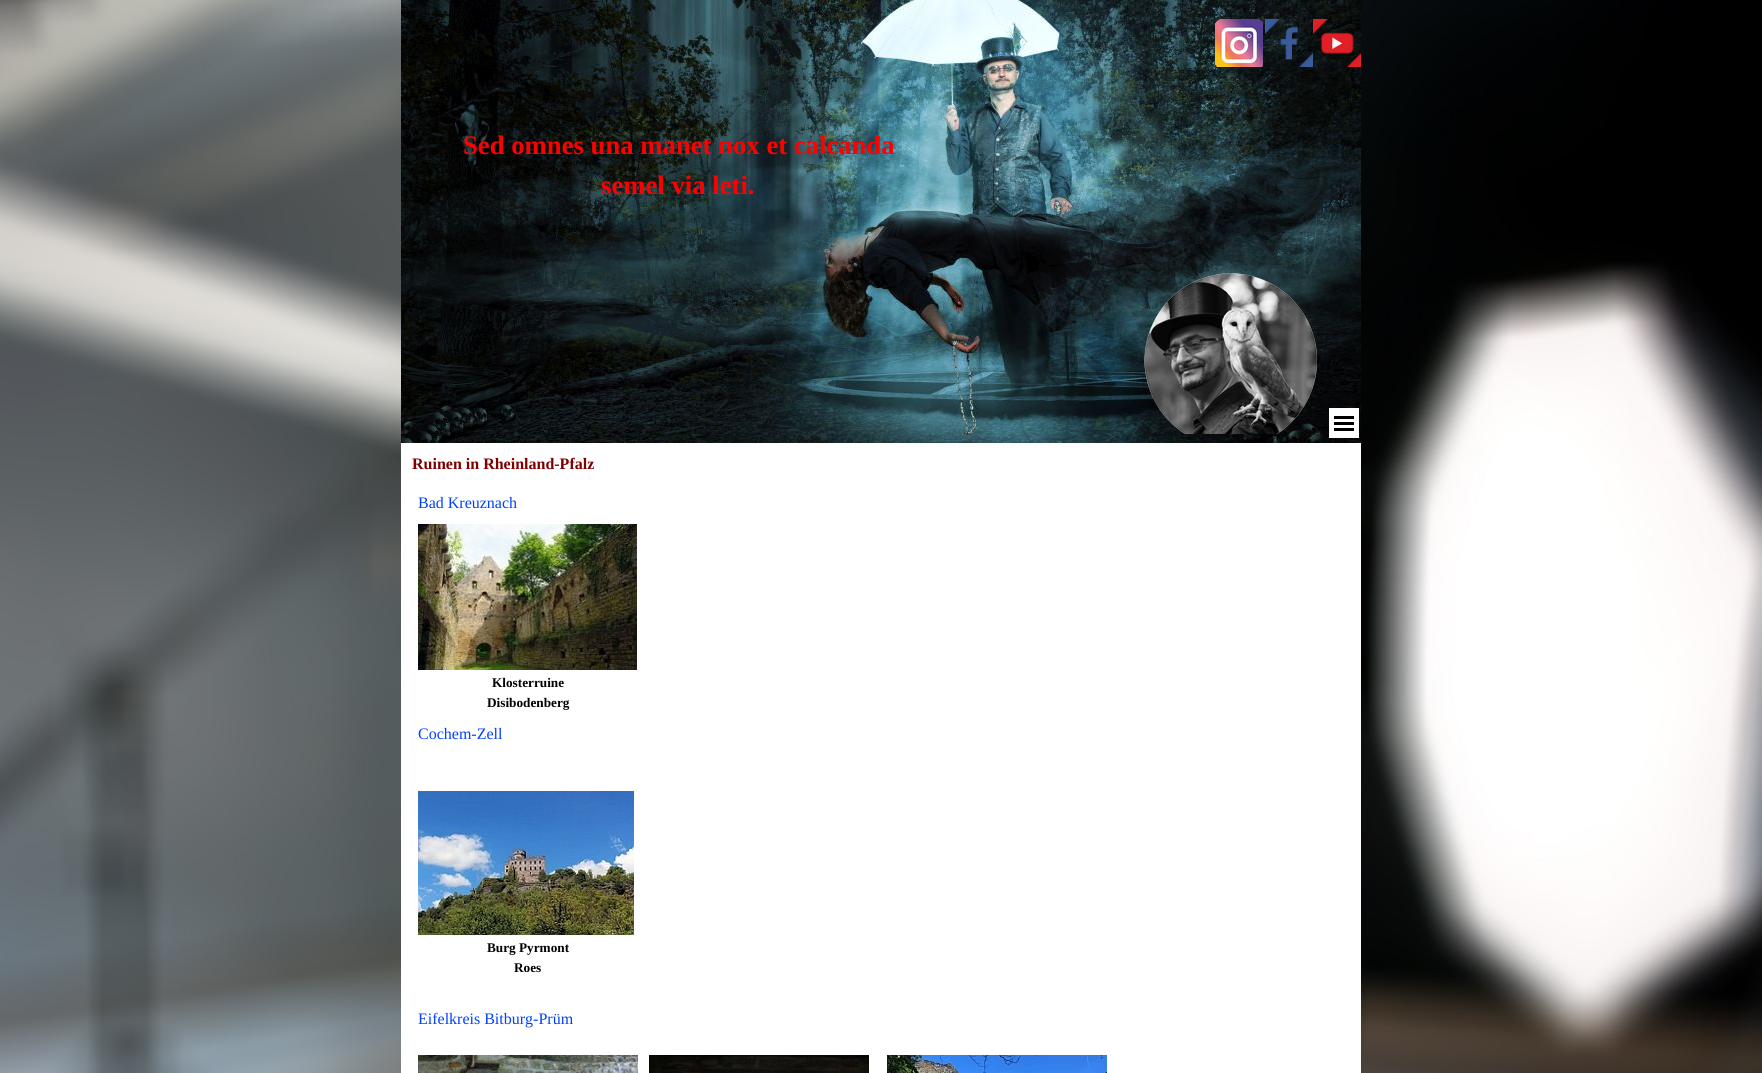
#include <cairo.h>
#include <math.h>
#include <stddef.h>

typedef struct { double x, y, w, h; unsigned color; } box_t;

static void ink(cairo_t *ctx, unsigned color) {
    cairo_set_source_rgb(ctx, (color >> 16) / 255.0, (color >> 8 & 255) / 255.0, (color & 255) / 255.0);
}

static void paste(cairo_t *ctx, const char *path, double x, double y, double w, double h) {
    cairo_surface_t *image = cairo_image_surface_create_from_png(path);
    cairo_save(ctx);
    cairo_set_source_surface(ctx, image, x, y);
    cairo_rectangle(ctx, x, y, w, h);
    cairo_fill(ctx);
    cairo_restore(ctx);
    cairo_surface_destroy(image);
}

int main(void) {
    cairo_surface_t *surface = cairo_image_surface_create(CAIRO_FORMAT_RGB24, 1762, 1073);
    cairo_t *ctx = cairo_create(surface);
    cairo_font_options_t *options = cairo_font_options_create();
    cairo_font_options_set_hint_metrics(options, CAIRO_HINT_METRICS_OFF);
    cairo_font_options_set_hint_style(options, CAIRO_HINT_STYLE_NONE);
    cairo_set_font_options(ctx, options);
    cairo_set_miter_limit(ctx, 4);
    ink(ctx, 0xFFFFFF);
    cairo_paint(ctx);
    paste(ctx, "media/1.png", 0, 0, 1762, 1073);
    paste(ctx, "media/2.png", 401, 0, 960, 443);
    paste(ctx, "media/3.png", 1215, 19, 48, 48);
    paste(ctx, "media/4.png", 1265, 19, 48, 48);
    paste(ctx, "media/5.png", 1313, 19, 48, 48);
    cairo_select_font_face(ctx, "Liberation Serif", CAIRO_FONT_SLANT_NORMAL, CAIRO_FONT_WEIGHT_BOLD);
    cairo_set_font_size(ctx, 26.7);
    ink(ctx, 0xFF0000);
    cairo_move_to(ctx, 463, 154);
    cairo_show_text(ctx, "Sed omnes una manet nox et calcanda");
    cairo_move_to(ctx, 601, 194);
    cairo_show_text(ctx, "semel via leti.");
    paste(ctx, "media/6.png", 1144, 273, 173, 161);
    {
        static const box_t items[] = {
            {1329, 408, 30, 30, 0xFFFFFF},
            {1334, 416, 20, 3, 0x000000},
            {1334, 422, 20, 3, 0x000000},
            {1334, 428, 20, 3, 0x000000},
            {401, 443, 960, 630, 0xFFFFFF},
        };
        for (size_t i = 0; i < sizeof items / sizeof *items; i++) {
            ink(ctx, items[i].color);
            cairo_rectangle(ctx, items[i].x, items[i].y, items[i].w, items[i].h);
            cairo_fill(ctx);
        }
    }
    cairo_set_font_size(ctx, 16);
    ink(ctx, 0x800000);
    cairo_move_to(ctx, 412, 469);
    cairo_show_text(ctx, "Ruinen in Rheinland-Pfalz");
    cairo_select_font_face(ctx, "Liberation Serif", CAIRO_FONT_SLANT_NORMAL, CAIRO_FONT_WEIGHT_NORMAL);
    ink(ctx, 0x0040FF);
    cairo_move_to(ctx, 418, 508);
    cairo_show_text(ctx, "Bad Kreuznach");
    paste(ctx, "media/7.png", 418, 524, 219, 146);
    cairo_select_font_face(ctx, "Liberation Serif", CAIRO_FONT_SLANT_NORMAL, CAIRO_FONT_WEIGHT_BOLD);
    cairo_set_font_size(ctx, 13.25);
    ink(ctx, 0x000000);
    cairo_move_to(ctx, 492, 687);
    cairo_show_text(ctx, "Klosterruine");
    cairo_move_to(ctx, 487, 707);
    cairo_show_text(ctx, "Disibodenberg");
    cairo_select_font_face(ctx, "Liberation Serif", CAIRO_FONT_SLANT_NORMAL, CAIRO_FONT_WEIGHT_NORMAL);
    cairo_set_font_size(ctx, 16);
    ink(ctx, 0x0040FF);
    cairo_move_to(ctx, 418, 739);
    cairo_show_text(ctx, "Cochem-Zell");
    paste(ctx, "media/8.png", 418, 791, 216, 144);
    cairo_select_font_face(ctx, "Liberation Serif", CAIRO_FONT_SLANT_NORMAL, CAIRO_FONT_WEIGHT_BOLD);
    cairo_set_font_size(ctx, 13.25);
    ink(ctx, 0x000000);
    cairo_move_to(ctx, 487, 952);
    cairo_show_text(ctx, "Burg Pyrmont");
    cairo_move_to(ctx, 514, 972);
    cairo_show_text(ctx, "Roes");
    cairo_select_font_face(ctx, "Liberation Serif", CAIRO_FONT_SLANT_NORMAL, CAIRO_FONT_WEIGHT_NORMAL);
    cairo_set_font_size(ctx, 16);
    ink(ctx, 0x0040FF);
    cairo_move_to(ctx, 418, 1024);
    cairo_show_text(ctx, "Eifelkreis Bitburg-Prüm");
    paste(ctx, "media/9.png", 418, 1055, 220, 18);
    paste(ctx, "media/10.png", 649, 1055, 220, 18);
    paste(ctx, "media/11.png", 887, 1055, 220, 18);
    cairo_surface_write_to_png(surface, "image.png");
    cairo_font_options_destroy(options);
    cairo_destroy(ctx);
    cairo_surface_destroy(surface);
    return 0;
}
